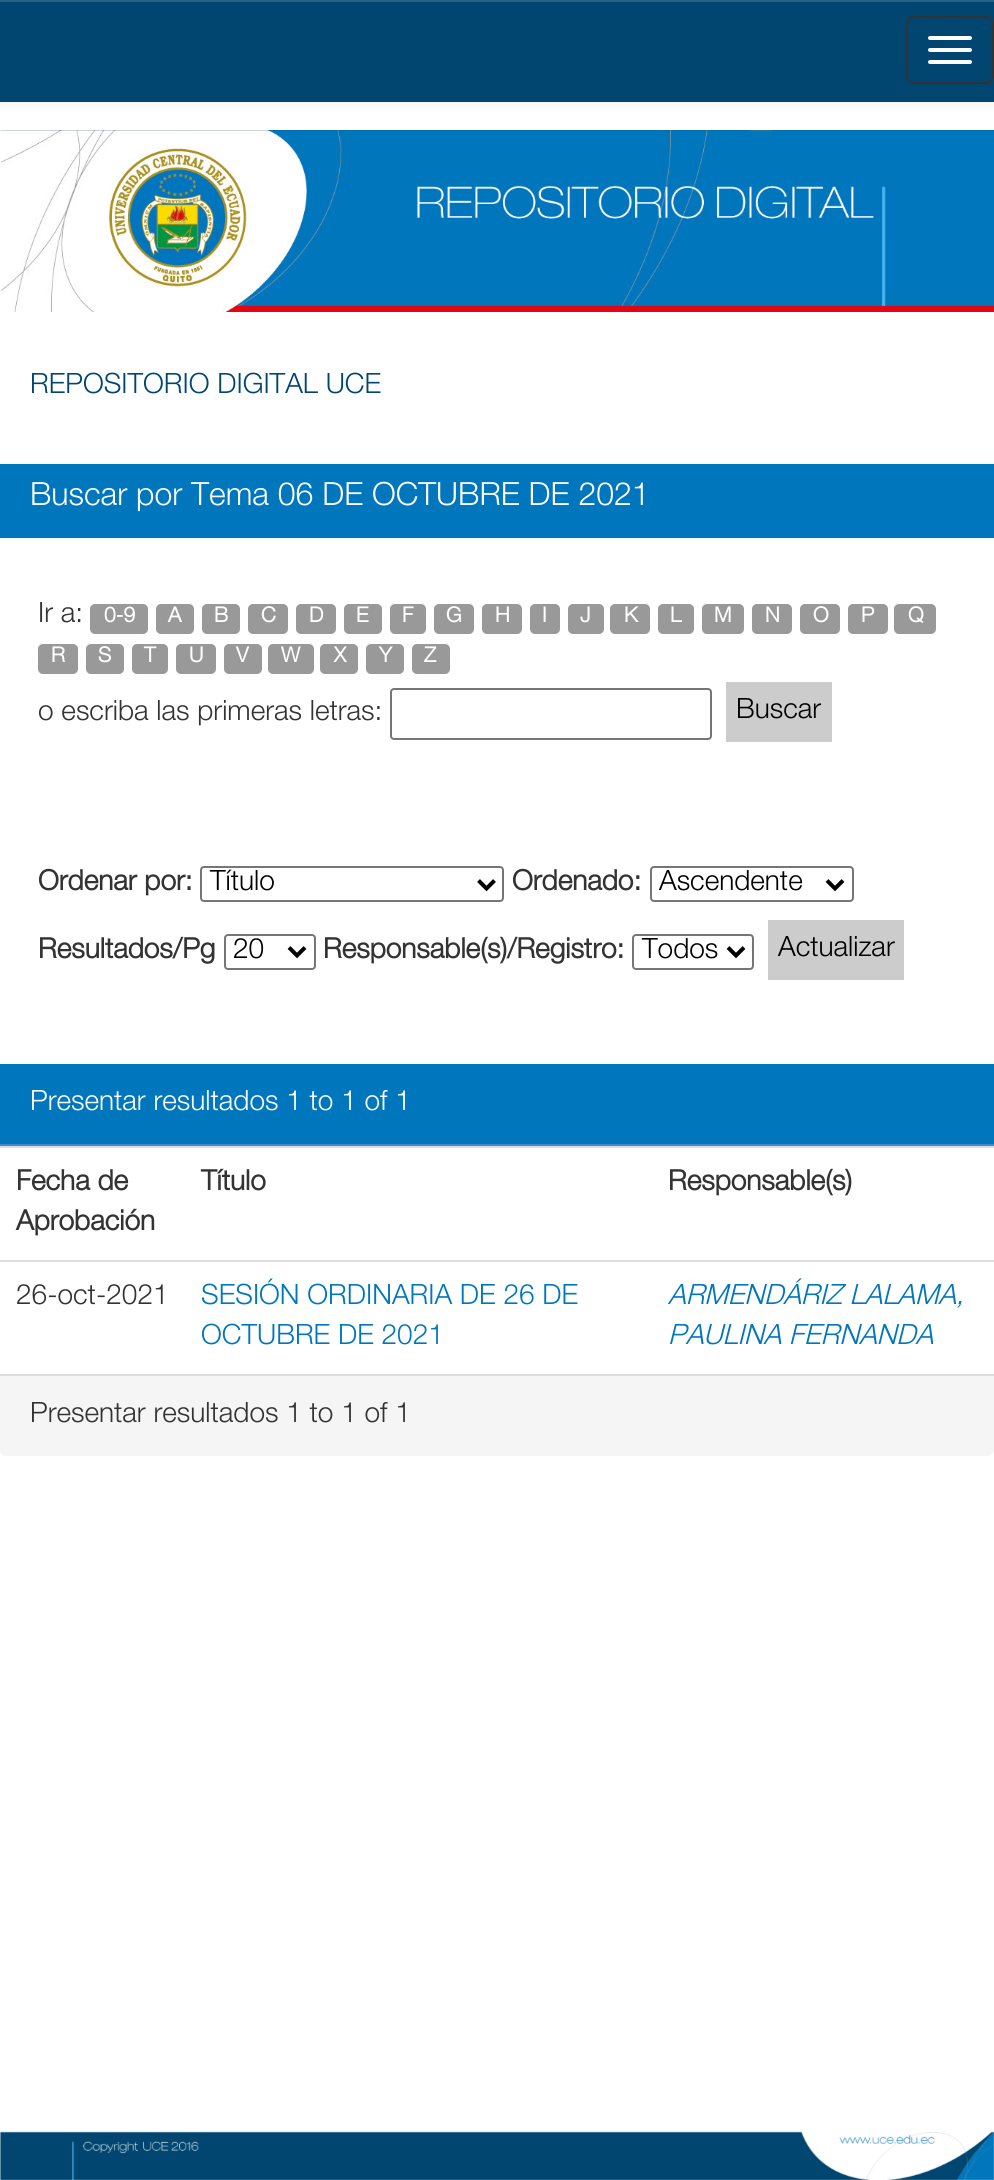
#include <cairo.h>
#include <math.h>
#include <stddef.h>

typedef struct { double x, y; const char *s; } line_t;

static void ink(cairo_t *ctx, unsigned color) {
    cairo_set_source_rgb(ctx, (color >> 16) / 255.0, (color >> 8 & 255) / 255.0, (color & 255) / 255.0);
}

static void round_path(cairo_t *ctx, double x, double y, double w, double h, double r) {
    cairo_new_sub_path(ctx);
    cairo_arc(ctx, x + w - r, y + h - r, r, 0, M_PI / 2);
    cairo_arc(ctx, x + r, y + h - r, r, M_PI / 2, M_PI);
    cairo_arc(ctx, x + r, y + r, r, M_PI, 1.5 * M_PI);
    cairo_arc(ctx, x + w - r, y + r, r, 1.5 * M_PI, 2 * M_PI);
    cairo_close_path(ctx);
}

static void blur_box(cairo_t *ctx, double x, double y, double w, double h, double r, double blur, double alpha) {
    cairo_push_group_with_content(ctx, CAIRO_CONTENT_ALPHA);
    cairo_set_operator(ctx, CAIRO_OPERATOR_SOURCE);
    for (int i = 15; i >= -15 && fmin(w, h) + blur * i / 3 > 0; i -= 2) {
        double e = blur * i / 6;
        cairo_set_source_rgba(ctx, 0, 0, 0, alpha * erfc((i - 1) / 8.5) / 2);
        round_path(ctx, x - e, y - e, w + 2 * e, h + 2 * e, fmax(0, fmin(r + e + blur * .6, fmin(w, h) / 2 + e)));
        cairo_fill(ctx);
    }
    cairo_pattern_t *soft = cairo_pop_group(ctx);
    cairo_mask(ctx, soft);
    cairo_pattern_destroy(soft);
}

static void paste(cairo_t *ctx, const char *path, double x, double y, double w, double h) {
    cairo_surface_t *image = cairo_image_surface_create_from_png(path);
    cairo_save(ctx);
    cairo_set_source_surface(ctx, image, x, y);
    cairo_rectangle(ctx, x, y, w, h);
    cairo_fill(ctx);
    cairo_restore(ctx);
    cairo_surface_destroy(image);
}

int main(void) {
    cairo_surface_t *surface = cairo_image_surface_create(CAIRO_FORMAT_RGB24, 994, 2180);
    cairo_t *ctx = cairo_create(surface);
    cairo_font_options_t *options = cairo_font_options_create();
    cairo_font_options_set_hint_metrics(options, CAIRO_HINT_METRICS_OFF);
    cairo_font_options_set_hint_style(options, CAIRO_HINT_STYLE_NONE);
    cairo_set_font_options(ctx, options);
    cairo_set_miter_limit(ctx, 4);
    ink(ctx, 0xFFFFFF);
    cairo_paint(ctx);
    ink(ctx, 0x000000);
    blur_box(ctx, 0, 2, 994, 102, 0, 5, 0.07);
    ink(ctx, 0x004671);
    cairo_rectangle(ctx, 0, 2, 994, 100);
    cairo_fill(ctx);
    ink(ctx, 0x266286);
    cairo_rectangle(ctx, 0, 0, 994, 2);
    cairo_fill(ctx);
    round_path(ctx, 907, 17, 86, 66, 7);
    ink(ctx, 0x333333);
    cairo_stroke(ctx);
    ink(ctx, 0xFFFFFF);
    round_path(ctx, 928, 36, 44, 4, 2);
    cairo_fill(ctx);
    round_path(ctx, 928, 48, 44, 4, 2);
    cairo_fill(ctx);
    round_path(ctx, 928, 60, 44, 4, 2);
    cairo_fill(ctx);
    paste(ctx, "media/1.png", 0, 130, 994, 182);
    cairo_select_font_face(ctx, "Helvetica Neue Light", CAIRO_FONT_SLANT_NORMAL, CAIRO_FONT_WEIGHT_NORMAL);
    cairo_set_font_size(ctx, 28);
    ink(ctx, 0x004671);
    cairo_move_to(ctx, 30, 393);
    cairo_show_text(ctx, "REPOSITORIO DIGITAL UCE");
    ink(ctx, 0x0076BD);
    cairo_rectangle(ctx, 0, 464, 994, 74);
    cairo_fill(ctx);
    cairo_set_font_size(ctx, 32);
    ink(ctx, 0xFFFFFF);
    cairo_move_to(ctx, 30, 505);
    cairo_show_text(ctx, "Buscar por Tema 06 DE OCTUBRE DE 2021");
    cairo_set_font_size(ctx, 28);
    ink(ctx, 0x333333);
    cairo_move_to(ctx, 38, 622);
    cairo_show_text(ctx, "Ir a:");
    ink(ctx, 0x999999);
    round_path(ctx, 90, 604, 58, 30, 5);
    cairo_fill(ctx);
    cairo_select_font_face(ctx, "Helvetica Neue", CAIRO_FONT_SLANT_NORMAL, CAIRO_FONT_WEIGHT_BOLD);
    cairo_set_font_size(ctx, 21);
    ink(ctx, 0xFFFFFF);
    cairo_move_to(ctx, 104, 622);
    cairo_show_text(ctx, "0-9");
    ink(ctx, 0x999999);
    round_path(ctx, 156, 604, 38, 30, 5);
    cairo_fill(ctx);
    ink(ctx, 0xFFFFFF);
    cairo_move_to(ctx, 168, 622);
    cairo_show_text(ctx, "A");
    ink(ctx, 0x999999);
    round_path(ctx, 202, 604, 38, 30, 5);
    cairo_fill(ctx);
    ink(ctx, 0xFFFFFF);
    cairo_move_to(ctx, 214, 622);
    cairo_show_text(ctx, "B");
    ink(ctx, 0x999999);
    round_path(ctx, 248, 604, 40, 30, 5);
    cairo_fill(ctx);
    ink(ctx, 0xFFFFFF);
    cairo_move_to(ctx, 261, 622);
    cairo_show_text(ctx, "C");
    ink(ctx, 0x999999);
    round_path(ctx, 296, 604, 40, 30, 5);
    cairo_fill(ctx);
    ink(ctx, 0xFFFFFF);
    cairo_move_to(ctx, 309, 622);
    cairo_show_text(ctx, "D");
    ink(ctx, 0x999999);
    round_path(ctx, 344, 604, 38, 30, 5);
    cairo_fill(ctx);
    ink(ctx, 0xFFFFFF);
    cairo_move_to(ctx, 356, 622);
    cairo_show_text(ctx, "E");
    ink(ctx, 0x999999);
    round_path(ctx, 390, 604, 36, 30, 5);
    cairo_fill(ctx);
    ink(ctx, 0xFFFFFF);
    cairo_move_to(ctx, 402, 622);
    cairo_show_text(ctx, "F");
    ink(ctx, 0x999999);
    round_path(ctx, 434, 604, 40, 30, 5);
    cairo_fill(ctx);
    ink(ctx, 0xFFFFFF);
    cairo_move_to(ctx, 446, 622);
    cairo_show_text(ctx, "G");
    ink(ctx, 0x999999);
    round_path(ctx, 482, 604, 40, 30, 5);
    cairo_fill(ctx);
    ink(ctx, 0xFFFFFF);
    cairo_move_to(ctx, 495, 622);
    cairo_show_text(ctx, "H");
    ink(ctx, 0x999999);
    round_path(ctx, 530, 604, 30, 30, 5);
    cairo_fill(ctx);
    ink(ctx, 0xFFFFFF);
    cairo_move_to(ctx, 542, 622);
    cairo_show_text(ctx, "I");
    ink(ctx, 0x999999);
    round_path(ctx, 568, 604, 36, 30, 5);
    cairo_fill(ctx);
    ink(ctx, 0xFFFFFF);
    cairo_move_to(ctx, 580, 622);
    cairo_show_text(ctx, "J");
    ink(ctx, 0x999999);
    round_path(ctx, 610, 604, 40, 30, 5);
    cairo_fill(ctx);
    ink(ctx, 0xFFFFFF);
    cairo_move_to(ctx, 624, 622);
    cairo_show_text(ctx, "K");
    ink(ctx, 0x999999);
    round_path(ctx, 658, 604, 36, 30, 5);
    cairo_fill(ctx);
    ink(ctx, 0xFFFFFF);
    cairo_move_to(ctx, 670, 622);
    cairo_show_text(ctx, "L");
    ink(ctx, 0x999999);
    round_path(ctx, 702, 604, 42, 30, 5);
    cairo_fill(ctx);
    ink(ctx, 0xFFFFFF);
    cairo_move_to(ctx, 714, 622);
    cairo_show_text(ctx, "M");
    ink(ctx, 0x999999);
    round_path(ctx, 752, 604, 40, 30, 5);
    cairo_fill(ctx);
    ink(ctx, 0xFFFFFF);
    cairo_move_to(ctx, 765, 622);
    cairo_show_text(ctx, "N");
    ink(ctx, 0x999999);
    round_path(ctx, 800, 604, 40, 30, 5);
    cairo_fill(ctx);
    ink(ctx, 0xFFFFFF);
    cairo_move_to(ctx, 813, 622);
    cairo_show_text(ctx, "O");
    ink(ctx, 0x999999);
    round_path(ctx, 848, 604, 40, 30, 5);
    cairo_fill(ctx);
    ink(ctx, 0xFFFFFF);
    cairo_move_to(ctx, 861, 622);
    cairo_show_text(ctx, "P");
    ink(ctx, 0x999999);
    round_path(ctx, 894, 604, 42, 30, 5);
    cairo_fill(ctx);
    ink(ctx, 0xFFFFFF);
    cairo_move_to(ctx, 908, 622);
    cairo_show_text(ctx, "Q");
    ink(ctx, 0x999999);
    round_path(ctx, 38, 644, 40, 30, 5);
    cairo_fill(ctx);
    ink(ctx, 0xFFFFFF);
    cairo_move_to(ctx, 51, 662);
    cairo_show_text(ctx, "R");
    ink(ctx, 0x999999);
    round_path(ctx, 86, 644, 38, 30, 5);
    cairo_fill(ctx);
    ink(ctx, 0xFFFFFF);
    cairo_move_to(ctx, 98, 662);
    cairo_show_text(ctx, "S");
    ink(ctx, 0x999999);
    round_path(ctx, 132, 644, 36, 30, 5);
    cairo_fill(ctx);
    ink(ctx, 0xFFFFFF);
    cairo_move_to(ctx, 144, 662);
    cairo_show_text(ctx, "T");
    ink(ctx, 0x999999);
    round_path(ctx, 176, 644, 40, 30, 5);
    cairo_fill(ctx);
    ink(ctx, 0xFFFFFF);
    cairo_move_to(ctx, 189, 662);
    cairo_show_text(ctx, "U");
    ink(ctx, 0x999999);
    round_path(ctx, 224, 644, 38, 30, 5);
    cairo_fill(ctx);
    ink(ctx, 0xFFFFFF);
    cairo_move_to(ctx, 236, 662);
    cairo_show_text(ctx, "V");
    ink(ctx, 0x999999);
    round_path(ctx, 268, 644, 46, 30, 5);
    cairo_fill(ctx);
    ink(ctx, 0xFFFFFF);
    cairo_move_to(ctx, 281, 662);
    cairo_show_text(ctx, "W");
    ink(ctx, 0x999999);
    round_path(ctx, 320, 644, 38, 30, 5);
    cairo_fill(ctx);
    ink(ctx, 0xFFFFFF);
    cairo_move_to(ctx, 334, 662);
    cairo_show_text(ctx, "X");
    ink(ctx, 0x999999);
    round_path(ctx, 366, 644, 38, 30, 5);
    cairo_fill(ctx);
    ink(ctx, 0xFFFFFF);
    cairo_move_to(ctx, 379, 662);
    cairo_show_text(ctx, "Y");
    ink(ctx, 0x999999);
    round_path(ctx, 412, 644, 38, 30, 5);
    cairo_fill(ctx);
    ink(ctx, 0xFFFFFF);
    cairo_move_to(ctx, 424, 662);
    cairo_show_text(ctx, "Z");
    cairo_select_font_face(ctx, "Helvetica Neue Light", CAIRO_FONT_SLANT_NORMAL, CAIRO_FONT_WEIGHT_NORMAL);
    cairo_set_font_size(ctx, 28);
    ink(ctx, 0x333333);
    cairo_move_to(ctx, 38, 720);
    cairo_show_text(ctx, "o escriba las primeras letras:");
    round_path(ctx, 391, 689, 320, 50, 3);
    ink(ctx, 0x767676);
    cairo_stroke(ctx);
    ink(ctx, 0xCCCCCC);
    cairo_rectangle(ctx, 726, 682, 106, 60);
    cairo_fill(ctx);
    ink(ctx, 0x000000);
    cairo_move_to(ctx, 736, 718);
    cairo_show_text(ctx, "Buscar");
    cairo_select_font_face(ctx, "Helvetica Neue", CAIRO_FONT_SLANT_NORMAL, CAIRO_FONT_WEIGHT_BOLD);
    ink(ctx, 0x333333);
    cairo_move_to(ctx, 38, 890);
    cairo_show_text(ctx, "Ordenar por:");
    round_path(ctx, 201, 867, 302, 34, 3);
    ink(ctx, 0x767676);
    cairo_stroke(ctx);
    cairo_new_path(ctx);
    cairo_move_to(ctx, 478.5, 880.5);
    cairo_line_to(ctx, 486.5, 888.5);
    cairo_line_to(ctx, 494.5, 880.5);
    ink(ctx, 0x000000);
    cairo_set_line_width(ctx, 4);
    cairo_stroke(ctx);
    cairo_select_font_face(ctx, "Helvetica Neue Light", CAIRO_FONT_SLANT_NORMAL, CAIRO_FONT_WEIGHT_NORMAL);
    cairo_move_to(ctx, 210, 890);
    cairo_show_text(ctx, "Título");
    cairo_select_font_face(ctx, "Helvetica Neue", CAIRO_FONT_SLANT_NORMAL, CAIRO_FONT_WEIGHT_BOLD);
    ink(ctx, 0x333333);
    cairo_move_to(ctx, 512, 890);
    cairo_show_text(ctx, "Ordenado:");
    round_path(ctx, 651, 867, 202, 34, 3);
    ink(ctx, 0x767676);
    cairo_set_line_width(ctx, 2);
    cairo_stroke(ctx);
    cairo_new_path(ctx);
    cairo_move_to(ctx, 827, 880.5);
    cairo_line_to(ctx, 835, 888.5);
    cairo_line_to(ctx, 843, 880.5);
    ink(ctx, 0x000000);
    cairo_set_line_width(ctx, 4);
    cairo_stroke(ctx);
    cairo_select_font_face(ctx, "Helvetica Neue Light", CAIRO_FONT_SLANT_NORMAL, CAIRO_FONT_WEIGHT_NORMAL);
    cairo_move_to(ctx, 659, 890);
    cairo_show_text(ctx, "Ascendente");
    cairo_select_font_face(ctx, "Helvetica Neue", CAIRO_FONT_SLANT_NORMAL, CAIRO_FONT_WEIGHT_BOLD);
    ink(ctx, 0x333333);
    cairo_move_to(ctx, 38, 958);
    cairo_show_text(ctx, "Resultados/Pg");
    round_path(ctx, 225, 935, 90, 34, 3);
    ink(ctx, 0x767676);
    cairo_set_line_width(ctx, 2);
    cairo_stroke(ctx);
    cairo_new_path(ctx);
    cairo_move_to(ctx, 289, 947.5);
    cairo_line_to(ctx, 297, 955.5);
    cairo_line_to(ctx, 305, 947.5);
    ink(ctx, 0x000000);
    cairo_set_line_width(ctx, 4);
    cairo_stroke(ctx);
    cairo_select_font_face(ctx, "Helvetica Neue Light", CAIRO_FONT_SLANT_NORMAL, CAIRO_FONT_WEIGHT_NORMAL);
    cairo_move_to(ctx, 233, 958);
    cairo_show_text(ctx, "20");
    cairo_select_font_face(ctx, "Helvetica Neue", CAIRO_FONT_SLANT_NORMAL, CAIRO_FONT_WEIGHT_BOLD);
    ink(ctx, 0x333333);
    cairo_move_to(ctx, 323, 958);
    cairo_show_text(ctx, "Responsable(s)/Registro:");
    round_path(ctx, 633, 935, 120, 34, 3);
    ink(ctx, 0x767676);
    cairo_set_line_width(ctx, 2);
    cairo_stroke(ctx);
    cairo_new_path(ctx);
    cairo_move_to(ctx, 728, 947.5);
    cairo_line_to(ctx, 736, 955.5);
    cairo_line_to(ctx, 744, 947.5);
    ink(ctx, 0x000000);
    cairo_set_line_width(ctx, 4);
    cairo_stroke(ctx);
    cairo_select_font_face(ctx, "Helvetica Neue Light", CAIRO_FONT_SLANT_NORMAL, CAIRO_FONT_WEIGHT_NORMAL);
    cairo_move_to(ctx, 642, 958);
    cairo_show_text(ctx, "Todos");
    ink(ctx, 0xCCCCCC);
    cairo_rectangle(ctx, 768, 920, 136, 60);
    cairo_fill(ctx);
    ink(ctx, 0x000000);
    cairo_move_to(ctx, 778, 956);
    cairo_show_text(ctx, "Actualizar");
    ink(ctx, 0x0076BD);
    cairo_rectangle(ctx, 0, 1064, 994, 80);
    cairo_fill(ctx);
    ink(ctx, 0x428BCA);
    cairo_rectangle(ctx, 0, 1144, 994, 2);
    cairo_fill(ctx);
    ink(ctx, 0xFFFFFF);
    cairo_move_to(ctx, 30, 1110);
    cairo_show_text(ctx, "Presentar resultados 1 to 1 of 1");
    cairo_select_font_face(ctx, "Helvetica Neue", CAIRO_FONT_SLANT_NORMAL, CAIRO_FONT_WEIGHT_BOLD);
    ink(ctx, 0x333333);
    {
        static const line_t items[] = {
            {16, 1190, "Fecha de"},
            {16, 1230, "Aprobación"},
            {201, 1190, "Título"},
        };
        for (size_t i = 0; i < sizeof items / sizeof *items; i++) {
            cairo_move_to(ctx, items[i].x, items[i].y);
            cairo_show_text(ctx, items[i].s);
        }
    }
    ink(ctx, 0xDDDDDD);
    cairo_rectangle(ctx, 0, 1146, 994, 2);
    cairo_fill(ctx);
    ink(ctx, 0x333333);
    cairo_move_to(ctx, 668, 1190);
    cairo_show_text(ctx, "Responsable(s)");
    cairo_select_font_face(ctx, "Helvetica Neue Light", CAIRO_FONT_SLANT_NORMAL, CAIRO_FONT_WEIGHT_NORMAL);
    cairo_move_to(ctx, 16, 1304);
    cairo_show_text(ctx, "26-oct-2021");
    ink(ctx, 0x0076BD);
    cairo_move_to(ctx, 201, 1304);
    cairo_show_text(ctx, "SESIÓN ORDINARIA DE 26 DE");
    cairo_move_to(ctx, 201, 1344);
    cairo_show_text(ctx, "OCTUBRE DE 2021");
    ink(ctx, 0xDDDDDD);
    cairo_rectangle(ctx, 0, 1260, 994, 2);
    cairo_fill(ctx);
    cairo_select_font_face(ctx, "Helvetica Neue Light", CAIRO_FONT_SLANT_ITALIC, CAIRO_FONT_WEIGHT_NORMAL);
    ink(ctx, 0x0076BD);
    cairo_move_to(ctx, 668, 1304);
    cairo_show_text(ctx, "ARMENDÁRIZ LALAMA,");
    cairo_move_to(ctx, 668, 1344);
    cairo_show_text(ctx, "PAULINA FERNANDA");
    ink(ctx, 0xF5F5F5);
    cairo_new_path(ctx);
    cairo_move_to(ctx, 0, 1374);
    cairo_line_to(ctx, 994, 1374);
    cairo_line_to(ctx, 994, 1450);
    cairo_curve_to(ctx, 994, 1453.5, 991.5, 1456, 988, 1456);
    cairo_line_to(ctx, 6, 1456);
    cairo_curve_to(ctx, 2.5, 1456, 0, 1453.5, 0, 1450);
    cairo_close_path(ctx);
    cairo_fill(ctx);
    ink(ctx, 0xDDDDDD);
    cairo_rectangle(ctx, 0, 1374, 994, 2);
    cairo_fill(ctx);
    cairo_select_font_face(ctx, "Helvetica Neue Light", CAIRO_FONT_SLANT_NORMAL, CAIRO_FONT_WEIGHT_NORMAL);
    ink(ctx, 0x333333);
    cairo_move_to(ctx, 30, 1422);
    cairo_show_text(ctx, "Presentar resultados 1 to 1 of 1");
    paste(ctx, "media/2.png", 0, 2131, 994, 49);
    cairo_surface_write_to_png(surface, "image.png");
    cairo_font_options_destroy(options);
    cairo_destroy(ctx);
    cairo_surface_destroy(surface);
    return 0;
}
